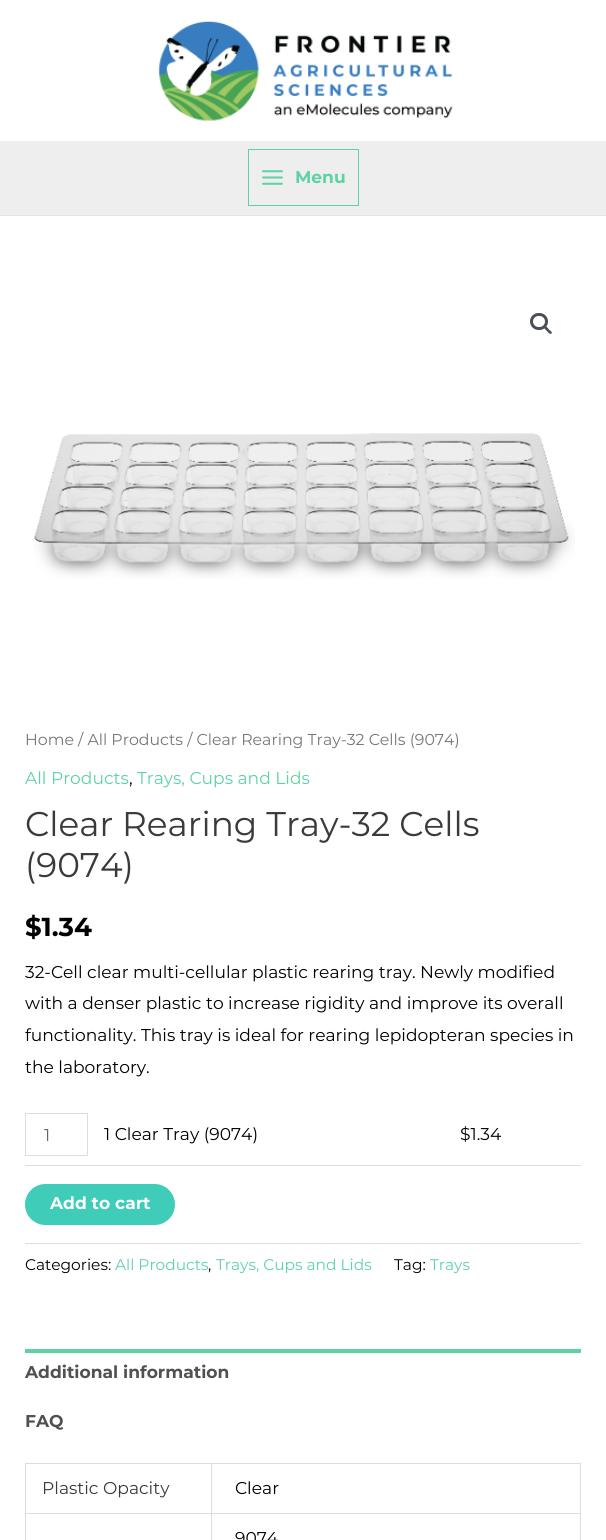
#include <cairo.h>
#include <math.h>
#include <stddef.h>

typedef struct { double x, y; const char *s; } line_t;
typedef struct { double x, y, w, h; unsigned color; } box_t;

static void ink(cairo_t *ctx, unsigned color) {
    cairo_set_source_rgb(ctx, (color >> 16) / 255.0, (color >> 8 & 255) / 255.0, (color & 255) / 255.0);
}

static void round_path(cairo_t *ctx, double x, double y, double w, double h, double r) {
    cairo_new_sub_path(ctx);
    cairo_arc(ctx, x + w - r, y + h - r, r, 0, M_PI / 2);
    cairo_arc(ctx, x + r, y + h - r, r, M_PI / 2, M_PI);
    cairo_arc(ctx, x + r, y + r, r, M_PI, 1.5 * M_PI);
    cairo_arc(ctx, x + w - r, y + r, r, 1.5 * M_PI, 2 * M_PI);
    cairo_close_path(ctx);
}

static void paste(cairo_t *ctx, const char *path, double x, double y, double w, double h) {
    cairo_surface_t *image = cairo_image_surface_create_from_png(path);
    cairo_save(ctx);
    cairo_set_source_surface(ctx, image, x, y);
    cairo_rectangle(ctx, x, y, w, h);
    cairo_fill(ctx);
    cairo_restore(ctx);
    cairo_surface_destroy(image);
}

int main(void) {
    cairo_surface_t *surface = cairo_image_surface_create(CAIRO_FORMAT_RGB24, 606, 1540);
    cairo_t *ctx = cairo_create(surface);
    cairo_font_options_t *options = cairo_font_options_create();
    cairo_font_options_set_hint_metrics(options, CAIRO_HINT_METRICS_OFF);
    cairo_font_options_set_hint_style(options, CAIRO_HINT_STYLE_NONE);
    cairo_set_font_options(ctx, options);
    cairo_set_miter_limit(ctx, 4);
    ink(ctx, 0xFFFFFF);
    cairo_paint(ctx);
    paste(ctx, "media/1.png", 158, 21, 295, 100);
    ink(ctx, 0xEEEEEE);
    cairo_rectangle(ctx, 0, 141, 606, 74);
    cairo_fill(ctx);
    ink(ctx, 0xE5E5E5);
    cairo_rectangle(ctx, 0, 215, 606, 1);
    cairo_fill(ctx);
    cairo_rectangle(ctx, 248.5, 149.5, 110, 56);
    ink(ctx, 0x5DD3A4);
    cairo_set_line_width(ctx, 1);
    cairo_stroke(ctx);
    paste(ctx, "media/2.png", 262, 170, 21, 15);
    cairo_select_font_face(ctx, "Montserrat", CAIRO_FONT_SLANT_NORMAL, CAIRO_FONT_WEIGHT_BOLD);
    cairo_set_font_size(ctx, 17.1);
    cairo_move_to(ctx, 295, 183);
    cairo_show_text(ctx, "Menu");
    round_path(ctx, 531.5, 314.5, 15, 14, 7);
    ink(ctx, 0x4B4F58);
    cairo_set_line_width(ctx, 3);
    cairo_stroke(ctx);
    cairo_new_path(ctx);
    cairo_move_to(ctx, 544.5, 326.5);
    cairo_curve_to(ctx, 546, 325, 548, 328.5, 549, 329.5);
    cairo_curve_to(ctx, 549.5, 330, 553, 332.5, 551.5, 333.5);
    cairo_curve_to(ctx, 550, 335, 548, 332, 547, 331);
    cairo_curve_to(ctx, 546.5, 330.5, 543, 328, 544.5, 326.5);
    cairo_close_path(ctx);
    cairo_fill(ctx);
    paste(ctx, "media/3.png", 34, 433, 541, 146);
    cairo_select_font_face(ctx, "Montserrat", CAIRO_FONT_SLANT_NORMAL, CAIRO_FONT_WEIGHT_NORMAL);
    cairo_set_font_size(ctx, 15.75);
    ink(ctx, 0x777777);
    cairo_move_to(ctx, 25, 745);
    cairo_show_text(ctx, "Home / All Products / Clear Rearing Tray-32 Cells (9074)");
    cairo_set_font_size(ctx, 17.1);
    ink(ctx, 0x5DD3A4);
    cairo_move_to(ctx, 25, 784);
    cairo_show_text(ctx, "All Products");
    ink(ctx, 0x000000);
    cairo_move_to(ctx, 129, 784);
    cairo_show_text(ctx, ",");
    ink(ctx, 0x5DD3A4);
    cairo_move_to(ctx, 137, 784);
    cairo_show_text(ctx, "Trays, Cups and Lids");
    cairo_set_font_size(ctx, 34.25);
    ink(ctx, 0x3A3A3A);
    cairo_move_to(ctx, 25, 836);
    cairo_show_text(ctx, "Clear Rearing Tray-32 Cells");
    cairo_move_to(ctx, 25, 877);
    cairo_show_text(ctx, "(9074)");
    cairo_select_font_face(ctx, "Montserrat", CAIRO_FONT_SLANT_NORMAL, CAIRO_FONT_WEIGHT_BOLD);
    cairo_set_font_size(ctx, 26);
    ink(ctx, 0x000000);
    cairo_move_to(ctx, 25, 936);
    cairo_show_text(ctx, "$1.34");
    cairo_select_font_face(ctx, "Montserrat", CAIRO_FONT_SLANT_NORMAL, CAIRO_FONT_WEIGHT_NORMAL);
    cairo_set_font_size(ctx, 17.1);
    {
        static const line_t items[] = {
            {25, 978, "32-Cell clear multi-cellular plastic rearing tray. Newly modified"},
            {25, 1009, "with a denser plastic to increase rigidity and improve its overall"},
            {25, 1041, "functionality. This tray is ideal for rearing lepidopteran species in"},
            {25, 1073, "the laboratory."},
        };
        for (size_t i = 0; i < sizeof items / sizeof *items; i++) {
            cairo_move_to(ctx, items[i].x, items[i].y);
            cairo_show_text(ctx, items[i].s);
        }
    }
    ink(ctx, 0xDDDDDD);
    cairo_rectangle(ctx, 25, 1165, 556, 1);
    cairo_fill(ctx);
    cairo_rectangle(ctx, 25.5, 1113.5, 62, 42);
    cairo_set_line_width(ctx, 1);
    cairo_stroke(ctx);
    ink(ctx, 0x666666);
    cairo_move_to(ctx, 44, 1141);
    cairo_show_text(ctx, "1");
    ink(ctx, 0x000000);
    cairo_move_to(ctx, 104, 1140);
    cairo_show_text(ctx, "1 Clear Tray (9074)");
    cairo_move_to(ctx, 460, 1140);
    cairo_show_text(ctx, "$1.34");
    ink(ctx, 0x3FCCB9);
    round_path(ctx, 25, 1184, 150, 41, 20.5);
    cairo_fill(ctx);
    cairo_select_font_face(ctx, "Montserrat", CAIRO_FONT_SLANT_NORMAL, CAIRO_FONT_WEIGHT_BOLD);
    ink(ctx, 0xFFFFFF);
    cairo_move_to(ctx, 50, 1209);
    cairo_show_text(ctx, "Add to cart");
    ink(ctx, 0xDDDDDD);
    cairo_rectangle(ctx, 25, 1243, 556, 1);
    cairo_fill(ctx);
    cairo_select_font_face(ctx, "Montserrat", CAIRO_FONT_SLANT_NORMAL, CAIRO_FONT_WEIGHT_NORMAL);
    cairo_set_font_size(ctx, 15.4);
    ink(ctx, 0x000000);
    cairo_move_to(ctx, 25, 1270);
    cairo_show_text(ctx, "Categories:");
    ink(ctx, 0x5DD3A4);
    cairo_move_to(ctx, 115, 1270);
    cairo_show_text(ctx, "All Products");
    ink(ctx, 0x000000);
    cairo_move_to(ctx, 208, 1270);
    cairo_show_text(ctx, ",");
    ink(ctx, 0x5DD3A4);
    cairo_move_to(ctx, 216, 1270);
    cairo_show_text(ctx, "Trays, Cups and Lids");
    ink(ctx, 0x000000);
    cairo_move_to(ctx, 394, 1270);
    cairo_show_text(ctx, "Tag:");
    ink(ctx, 0x5DD3A4);
    cairo_move_to(ctx, 430, 1270);
    cairo_show_text(ctx, "Trays");
    cairo_rectangle(ctx, 25, 1349, 556, 4);
    cairo_fill(ctx);
    cairo_select_font_face(ctx, "Montserrat", CAIRO_FONT_SLANT_NORMAL, CAIRO_FONT_WEIGHT_BOLD);
    cairo_set_font_size(ctx, 17.1);
    ink(ctx, 0x515151);
    cairo_move_to(ctx, 25, 1378);
    cairo_show_text(ctx, "Additional information");
    cairo_move_to(ctx, 25, 1427);
    cairo_show_text(ctx, "FAQ");
    {
        static const box_t items[] = {
            {25, 1463, 556, 1, 0xDDDDDD},
            {211, 1464, 1, 76, 0xDDDDDD},
            {25, 1513, 188, 1, 0xDDDDDD},
            {25, 1464, 1, 76, 0xDDDDDD},
        };
        for (size_t i = 0; i < sizeof items / sizeof *items; i++) {
            ink(ctx, items[i].color);
            cairo_rectangle(ctx, items[i].x, items[i].y, items[i].w, items[i].h);
            cairo_fill(ctx);
        }
    }
    cairo_select_font_face(ctx, "Montserrat", CAIRO_FONT_SLANT_NORMAL, CAIRO_FONT_WEIGHT_NORMAL);
    ink(ctx, 0x3A3A3A);
    cairo_move_to(ctx, 42, 1494);
    cairo_show_text(ctx, "Plastic Opacity");
    ink(ctx, 0xDDDDDD);
    cairo_rectangle(ctx, 580, 1464, 1, 76);
    cairo_fill(ctx);
    cairo_rectangle(ctx, 213, 1513, 368, 1);
    cairo_fill(ctx);
    ink(ctx, 0x000000);
    cairo_move_to(ctx, 235, 1494);
    cairo_show_text(ctx, "Clear");
    cairo_move_to(ctx, 235, 1544);
    cairo_show_text(ctx, "9074");
    cairo_surface_write_to_png(surface, "image.png");
    cairo_font_options_destroy(options);
    cairo_destroy(ctx);
    cairo_surface_destroy(surface);
    return 0;
}
